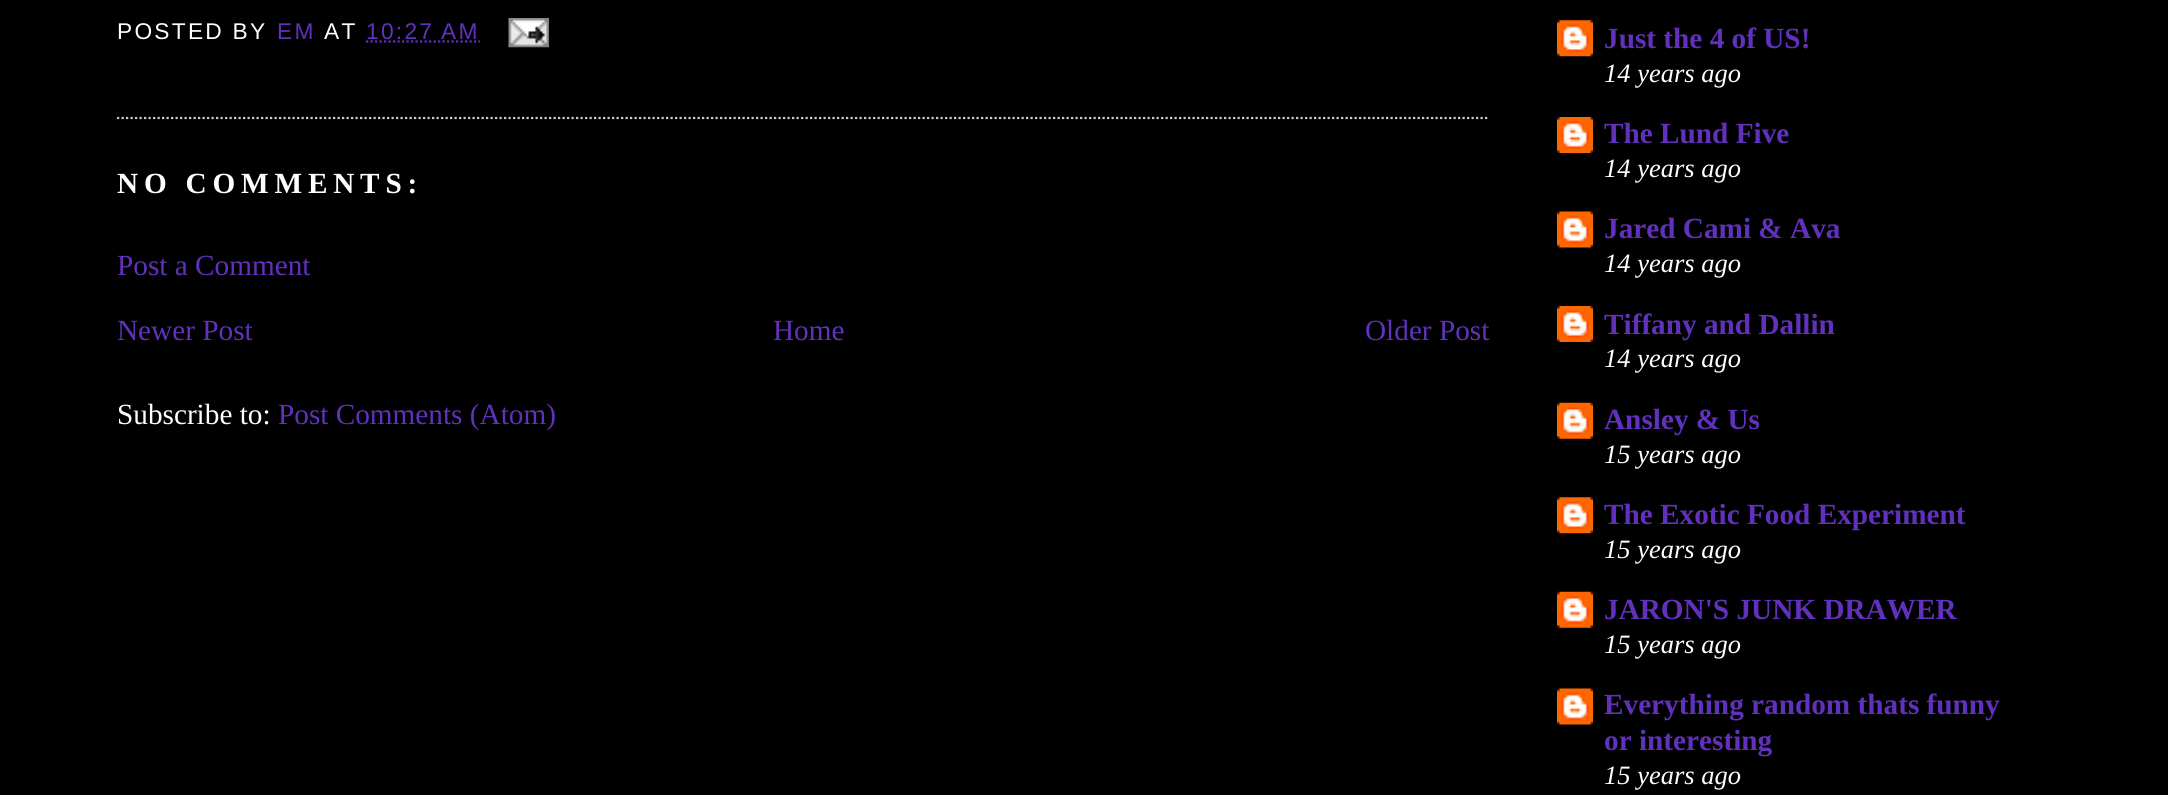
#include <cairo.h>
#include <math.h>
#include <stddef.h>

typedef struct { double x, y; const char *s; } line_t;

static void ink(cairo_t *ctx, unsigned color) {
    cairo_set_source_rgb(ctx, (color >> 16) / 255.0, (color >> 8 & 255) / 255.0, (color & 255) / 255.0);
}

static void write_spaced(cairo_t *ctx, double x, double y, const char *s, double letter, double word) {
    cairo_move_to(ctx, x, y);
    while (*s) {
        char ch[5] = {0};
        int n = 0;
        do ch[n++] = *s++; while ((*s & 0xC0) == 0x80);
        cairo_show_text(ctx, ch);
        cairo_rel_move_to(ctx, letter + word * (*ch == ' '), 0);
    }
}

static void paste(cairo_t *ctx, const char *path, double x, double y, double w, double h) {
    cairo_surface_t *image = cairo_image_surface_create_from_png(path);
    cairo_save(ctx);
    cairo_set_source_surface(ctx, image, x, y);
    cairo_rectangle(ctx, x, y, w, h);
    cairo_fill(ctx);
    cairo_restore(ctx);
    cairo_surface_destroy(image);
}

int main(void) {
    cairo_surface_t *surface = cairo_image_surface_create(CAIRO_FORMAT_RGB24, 2168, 795);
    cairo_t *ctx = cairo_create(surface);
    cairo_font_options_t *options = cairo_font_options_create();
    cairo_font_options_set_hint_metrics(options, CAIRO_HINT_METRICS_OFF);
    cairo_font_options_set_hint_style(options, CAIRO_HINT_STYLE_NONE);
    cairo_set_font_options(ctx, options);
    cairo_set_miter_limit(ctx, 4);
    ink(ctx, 0x000000);
    cairo_paint(ctx);
    cairo_new_path(ctx);
    cairo_move_to(ctx, 117, 118);
    cairo_line_to(ctx, 1489.5, 118);
    ink(ctx, 0xCCCCCC);
    cairo_set_line_width(ctx, 2.2);
    cairo_set_dash(ctx, (double[]){2.25, 2.25}, 2, 0);
    cairo_stroke(ctx);
    cairo_select_font_face(ctx, "Liberation Sans", CAIRO_FONT_SLANT_NORMAL, CAIRO_FONT_WEIGHT_NORMAL);
    cairo_set_font_size(ctx, 22.75);
    ink(ctx, 0xFFFFFF);
    write_spaced(ctx, 117, 39, "POSTED BY", 2.25, 0);
    ink(ctx, 0x6131BD);
    write_spaced(ctx, 277, 39, "EM", 2.25, 0);
    ink(ctx, 0xFFFFFF);
    write_spaced(ctx, 324, 39, "AT", 2.25, 0);
    ink(ctx, 0x6131BD);
    write_spaced(ctx, 366, 39, "10:27 AM", 2.25, 0);
    cairo_new_path(ctx);
    cairo_move_to(ctx, 366, 41.5);
    cairo_line_to(ctx, 480, 41.5);
    cairo_stroke(ctx);
    paste(ctx, "media/1.png", 508, 18, 41, 30);
    cairo_select_font_face(ctx, "Liberation Serif", CAIRO_FONT_SLANT_NORMAL, CAIRO_FONT_WEIGHT_BOLD);
    cairo_set_font_size(ctx, 29.25);
    ink(ctx, 0xFFFFFF);
    write_spaced(ctx, 117, 193, "NO COMMENTS:", 5.8, 0);
    cairo_select_font_face(ctx, "Liberation Serif", CAIRO_FONT_SLANT_NORMAL, CAIRO_FONT_WEIGHT_NORMAL);
    ink(ctx, 0x6131BD);
    {
        static const line_t items[] = {
            {117, 275, "Post a Comment"},
            {117, 340, "Newer Post"},
            {773, 340, "Home"},
            {1365, 340, "Older Post"},
        };
        for (size_t i = 0; i < sizeof items / sizeof *items; i++) {
            cairo_move_to(ctx, items[i].x, items[i].y);
            cairo_show_text(ctx, items[i].s);
        }
    }
    ink(ctx, 0xFFFFFF);
    cairo_move_to(ctx, 117, 424);
    cairo_show_text(ctx, "Subscribe to:");
    ink(ctx, 0x6131BD);
    cairo_move_to(ctx, 278, 424);
    cairo_show_text(ctx, "Post Comments (Atom)");
    paste(ctx, "media/2.png", 1557, 20, 36, 37);
    cairo_select_font_face(ctx, "Liberation Serif", CAIRO_FONT_SLANT_NORMAL, CAIRO_FONT_WEIGHT_BOLD);
    cairo_move_to(ctx, 1604, 48);
    cairo_show_text(ctx, "Just the 4 of US!");
    cairo_select_font_face(ctx, "Liberation Serif", CAIRO_FONT_SLANT_ITALIC, CAIRO_FONT_WEIGHT_NORMAL);
    cairo_set_font_size(ctx, 26.5);
    ink(ctx, 0xFFFFFF);
    cairo_move_to(ctx, 1604, 82);
    cairo_show_text(ctx, "14 years ago");
    paste(ctx, "media/3.png", 1557, 117, 36, 36);
    cairo_select_font_face(ctx, "Liberation Serif", CAIRO_FONT_SLANT_NORMAL, CAIRO_FONT_WEIGHT_BOLD);
    cairo_set_font_size(ctx, 29.25);
    ink(ctx, 0x6131BD);
    cairo_move_to(ctx, 1604, 143);
    cairo_show_text(ctx, "The Lund Five");
    cairo_select_font_face(ctx, "Liberation Serif", CAIRO_FONT_SLANT_ITALIC, CAIRO_FONT_WEIGHT_NORMAL);
    cairo_set_font_size(ctx, 26.5);
    ink(ctx, 0xFFFFFF);
    cairo_move_to(ctx, 1604, 177);
    cairo_show_text(ctx, "14 years ago");
    paste(ctx, "media/4.png", 1557, 211, 36, 37);
    cairo_select_font_face(ctx, "Liberation Serif", CAIRO_FONT_SLANT_NORMAL, CAIRO_FONT_WEIGHT_BOLD);
    cairo_set_font_size(ctx, 29.25);
    ink(ctx, 0x6131BD);
    cairo_move_to(ctx, 1604, 238);
    cairo_show_text(ctx, "Jared Cami & Ava");
    cairo_select_font_face(ctx, "Liberation Serif", CAIRO_FONT_SLANT_ITALIC, CAIRO_FONT_WEIGHT_NORMAL);
    cairo_set_font_size(ctx, 26.5);
    ink(ctx, 0xFFFFFF);
    cairo_move_to(ctx, 1604, 272);
    cairo_show_text(ctx, "14 years ago");
    paste(ctx, "media/3.png", 1557, 306, 36, 36);
    cairo_select_font_face(ctx, "Liberation Serif", CAIRO_FONT_SLANT_NORMAL, CAIRO_FONT_WEIGHT_BOLD);
    cairo_set_font_size(ctx, 29.25);
    ink(ctx, 0x6131BD);
    cairo_move_to(ctx, 1604, 334);
    cairo_show_text(ctx, "Tiffany and Dallin");
    cairo_select_font_face(ctx, "Liberation Serif", CAIRO_FONT_SLANT_ITALIC, CAIRO_FONT_WEIGHT_NORMAL);
    cairo_set_font_size(ctx, 26.5);
    ink(ctx, 0xFFFFFF);
    cairo_move_to(ctx, 1604, 367);
    cairo_show_text(ctx, "14 years ago");
    paste(ctx, "media/5.png", 1557, 402, 36, 37);
    cairo_select_font_face(ctx, "Liberation Serif", CAIRO_FONT_SLANT_NORMAL, CAIRO_FONT_WEIGHT_BOLD);
    cairo_set_font_size(ctx, 29.25);
    ink(ctx, 0x6131BD);
    cairo_move_to(ctx, 1604, 429);
    cairo_show_text(ctx, "Ansley & Us");
    cairo_select_font_face(ctx, "Liberation Serif", CAIRO_FONT_SLANT_ITALIC, CAIRO_FONT_WEIGHT_NORMAL);
    cairo_set_font_size(ctx, 26.5);
    ink(ctx, 0xFFFFFF);
    cairo_move_to(ctx, 1604, 463);
    cairo_show_text(ctx, "15 years ago");
    paste(ctx, "media/2.png", 1557, 497, 36, 37);
    cairo_select_font_face(ctx, "Liberation Serif", CAIRO_FONT_SLANT_NORMAL, CAIRO_FONT_WEIGHT_BOLD);
    cairo_set_font_size(ctx, 29.25);
    ink(ctx, 0x6131BD);
    cairo_move_to(ctx, 1604, 524);
    cairo_show_text(ctx, "The Exotic Food Experiment");
    cairo_select_font_face(ctx, "Liberation Serif", CAIRO_FONT_SLANT_ITALIC, CAIRO_FONT_WEIGHT_NORMAL);
    cairo_set_font_size(ctx, 26.5);
    ink(ctx, 0xFFFFFF);
    cairo_move_to(ctx, 1604, 558);
    cairo_show_text(ctx, "15 years ago");
    paste(ctx, "media/5.png", 1557, 591, 36, 37);
    cairo_select_font_face(ctx, "Liberation Serif", CAIRO_FONT_SLANT_NORMAL, CAIRO_FONT_WEIGHT_BOLD);
    cairo_set_font_size(ctx, 29.25);
    ink(ctx, 0x6131BD);
    cairo_move_to(ctx, 1604, 619);
    cairo_show_text(ctx, "JARON'S JUNK DRAWER");
    cairo_select_font_face(ctx, "Liberation Serif", CAIRO_FONT_SLANT_ITALIC, CAIRO_FONT_WEIGHT_NORMAL);
    cairo_set_font_size(ctx, 26.5);
    ink(ctx, 0xFFFFFF);
    cairo_move_to(ctx, 1604, 653);
    cairo_show_text(ctx, "15 years ago");
    paste(ctx, "media/4.png", 1557, 688, 36, 37);
    cairo_select_font_face(ctx, "Liberation Serif", CAIRO_FONT_SLANT_NORMAL, CAIRO_FONT_WEIGHT_BOLD);
    cairo_set_font_size(ctx, 29.25);
    ink(ctx, 0x6131BD);
    cairo_move_to(ctx, 1604, 714);
    cairo_show_text(ctx, "Everything random thats funny");
    cairo_move_to(ctx, 1604, 750);
    cairo_show_text(ctx, "or interesting");
    cairo_select_font_face(ctx, "Liberation Serif", CAIRO_FONT_SLANT_ITALIC, CAIRO_FONT_WEIGHT_NORMAL);
    cairo_set_font_size(ctx, 26.5);
    ink(ctx, 0xFFFFFF);
    cairo_move_to(ctx, 1604, 784);
    cairo_show_text(ctx, "15 years ago");
    cairo_surface_write_to_png(surface, "image.png");
    cairo_font_options_destroy(options);
    cairo_destroy(ctx);
    cairo_surface_destroy(surface);
    return 0;
}
